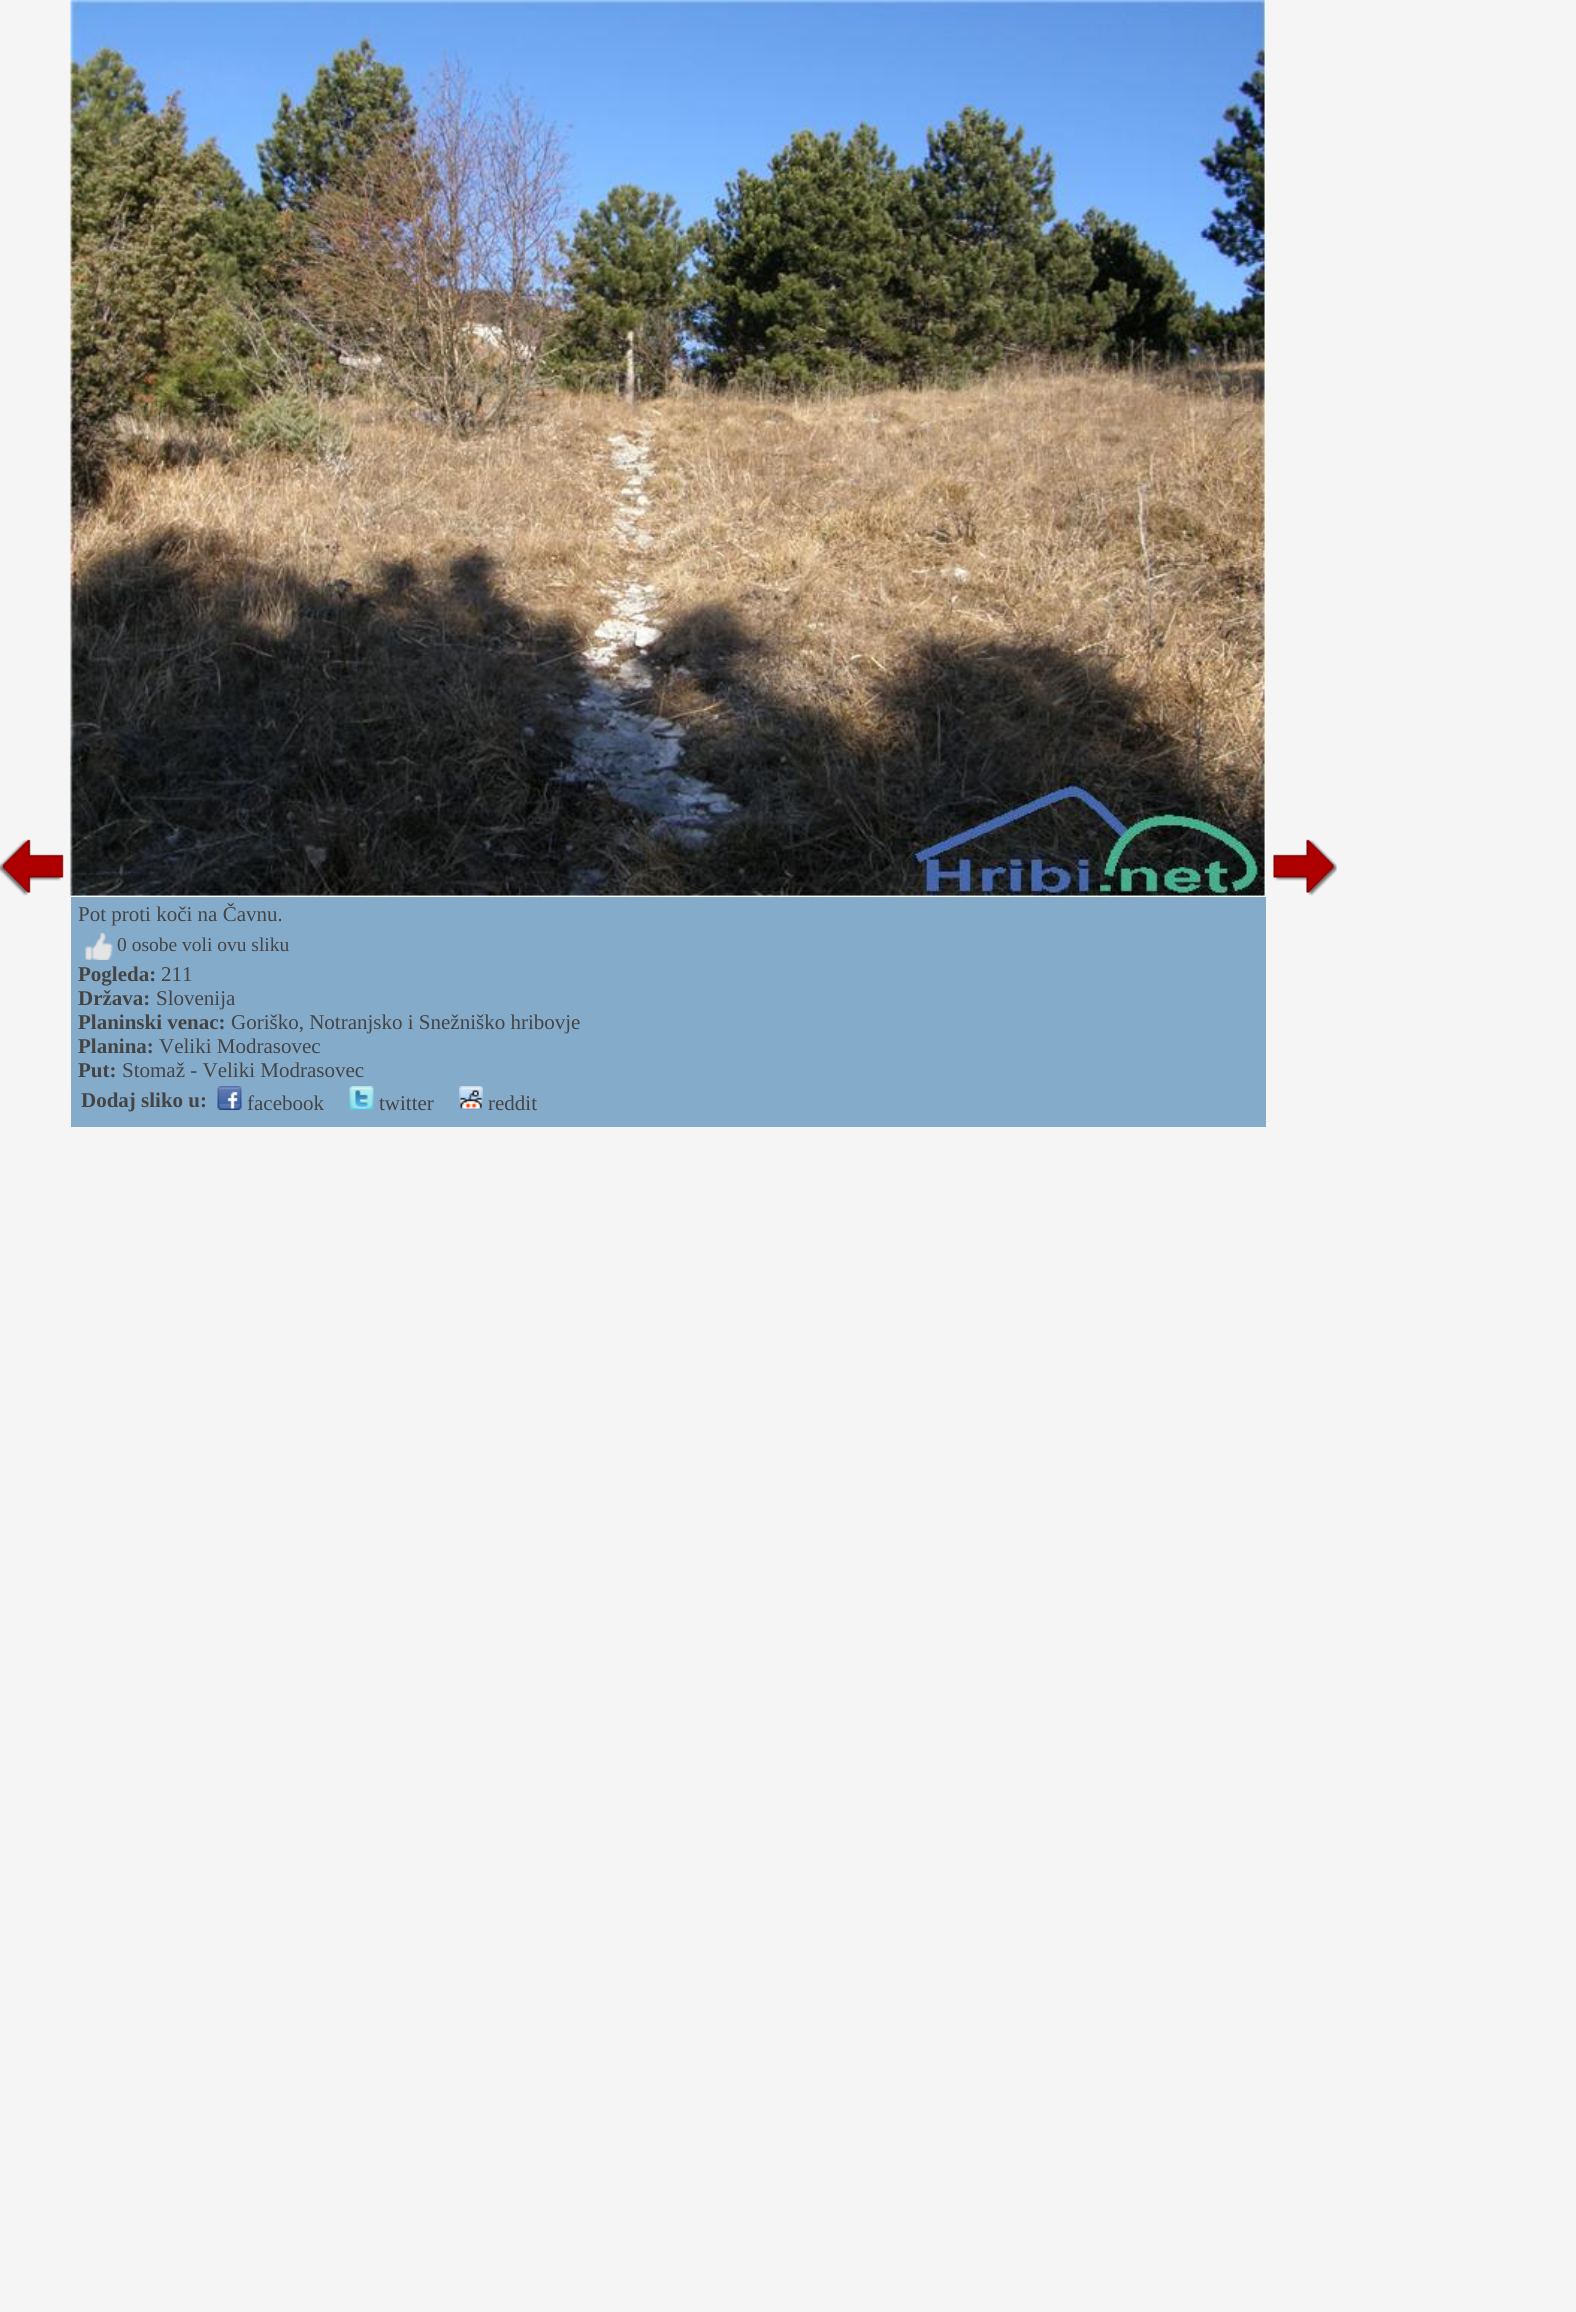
#include <cairo.h>
#include <math.h>
#include <stddef.h>


static void ink(cairo_t *ctx, unsigned color) {
    cairo_set_source_rgb(ctx, (color >> 16) / 255.0, (color >> 8 & 255) / 255.0, (color & 255) / 255.0);
}

static void paste(cairo_t *ctx, const char *path, double x, double y, double w, double h) {
    cairo_surface_t *image = cairo_image_surface_create_from_png(path);
    cairo_save(ctx);
    cairo_set_source_surface(ctx, image, x, y);
    cairo_rectangle(ctx, x, y, w, h);
    cairo_fill(ctx);
    cairo_restore(ctx);
    cairo_surface_destroy(image);
}

int main(void) {
    cairo_surface_t *surface = cairo_image_surface_create(CAIRO_FORMAT_RGB24, 1576, 2312);
    cairo_t *ctx = cairo_create(surface);
    cairo_font_options_t *options = cairo_font_options_create();
    cairo_font_options_set_hint_metrics(options, CAIRO_HINT_METRICS_OFF);
    cairo_font_options_set_hint_style(options, CAIRO_HINT_STYLE_NONE);
    cairo_set_font_options(ctx, options);
    cairo_set_miter_limit(ctx, 4);
    ink(ctx, 0xF5F5F5);
    cairo_paint(ctx);
    paste(ctx, "media/1.png", 0, 839, 64, 57);
    paste(ctx, "media/2.png", 1273, 839, 64, 57);
    ink(ctx, 0x85ABCA);
    cairo_rectangle(ctx, 71, 897, 1195, 230);
    cairo_fill(ctx);
    paste(ctx, "media/3.png", 70, 0, 1196, 897);
    cairo_select_font_face(ctx, "Liberation Serif", CAIRO_FONT_SLANT_NORMAL, CAIRO_FONT_WEIGHT_NORMAL);
    cairo_set_font_size(ctx, 21);
    ink(ctx, 0x444444);
    cairo_move_to(ctx, 78, 921);
    cairo_show_text(ctx, "Pot proti koči na Čavnu.");
    paste(ctx, "media/4.png", 85, 933, 28, 27);
    cairo_set_font_size(ctx, 19.5);
    cairo_move_to(ctx, 117, 951);
    cairo_show_text(ctx, "0 osobe voli ovu sliku");
    cairo_select_font_face(ctx, "Liberation Serif", CAIRO_FONT_SLANT_NORMAL, CAIRO_FONT_WEIGHT_BOLD);
    cairo_set_font_size(ctx, 21);
    cairo_move_to(ctx, 78, 981);
    cairo_show_text(ctx, "Pogleda:");
    cairo_select_font_face(ctx, "Liberation Serif", CAIRO_FONT_SLANT_NORMAL, CAIRO_FONT_WEIGHT_NORMAL);
    cairo_move_to(ctx, 161, 981);
    cairo_show_text(ctx, "211");
    cairo_select_font_face(ctx, "Liberation Serif", CAIRO_FONT_SLANT_NORMAL, CAIRO_FONT_WEIGHT_BOLD);
    cairo_move_to(ctx, 78, 1005);
    cairo_show_text(ctx, "Država:");
    cairo_select_font_face(ctx, "Liberation Serif", CAIRO_FONT_SLANT_NORMAL, CAIRO_FONT_WEIGHT_NORMAL);
    cairo_move_to(ctx, 156, 1005);
    cairo_show_text(ctx, "Slovenija");
    cairo_select_font_face(ctx, "Liberation Serif", CAIRO_FONT_SLANT_NORMAL, CAIRO_FONT_WEIGHT_BOLD);
    cairo_move_to(ctx, 78, 1029);
    cairo_show_text(ctx, "Planinski venac:");
    cairo_select_font_face(ctx, "Liberation Serif", CAIRO_FONT_SLANT_NORMAL, CAIRO_FONT_WEIGHT_NORMAL);
    cairo_move_to(ctx, 231, 1029);
    cairo_show_text(ctx, "Goriško, Notranjsko i Snežniško hribovje");
    cairo_select_font_face(ctx, "Liberation Serif", CAIRO_FONT_SLANT_NORMAL, CAIRO_FONT_WEIGHT_BOLD);
    cairo_move_to(ctx, 78, 1053);
    cairo_show_text(ctx, "Planina:");
    cairo_select_font_face(ctx, "Liberation Serif", CAIRO_FONT_SLANT_NORMAL, CAIRO_FONT_WEIGHT_NORMAL);
    cairo_move_to(ctx, 159, 1053);
    cairo_show_text(ctx, "Veliki Modrasovec");
    cairo_select_font_face(ctx, "Liberation Serif", CAIRO_FONT_SLANT_NORMAL, CAIRO_FONT_WEIGHT_BOLD);
    cairo_move_to(ctx, 78, 1077);
    cairo_show_text(ctx, "Put:");
    cairo_select_font_face(ctx, "Liberation Serif", CAIRO_FONT_SLANT_NORMAL, CAIRO_FONT_WEIGHT_NORMAL);
    cairo_move_to(ctx, 122, 1077);
    cairo_show_text(ctx, "Stomaž - Veliki Modrasovec");
    cairo_select_font_face(ctx, "Liberation Serif", CAIRO_FONT_SLANT_NORMAL, CAIRO_FONT_WEIGHT_BOLD);
    cairo_move_to(ctx, 81, 1107);
    cairo_show_text(ctx, "Dodaj sliko u:");
    paste(ctx, "media/5.png", 217, 1086, 25, 24);
    cairo_select_font_face(ctx, "Liberation Serif", CAIRO_FONT_SLANT_NORMAL, CAIRO_FONT_WEIGHT_NORMAL);
    cairo_move_to(ctx, 247, 1110);
    cairo_show_text(ctx, "facebook");
    paste(ctx, "media/6.png", 349, 1086, 25, 24);
    cairo_move_to(ctx, 379, 1110);
    cairo_show_text(ctx, "twitter");
    paste(ctx, "media/7.png", 459, 1086, 24, 24);
    cairo_move_to(ctx, 488, 1110);
    cairo_show_text(ctx, "reddit");
    cairo_surface_write_to_png(surface, "image.png");
    cairo_font_options_destroy(options);
    cairo_destroy(ctx);
    cairo_surface_destroy(surface);
    return 0;
}
